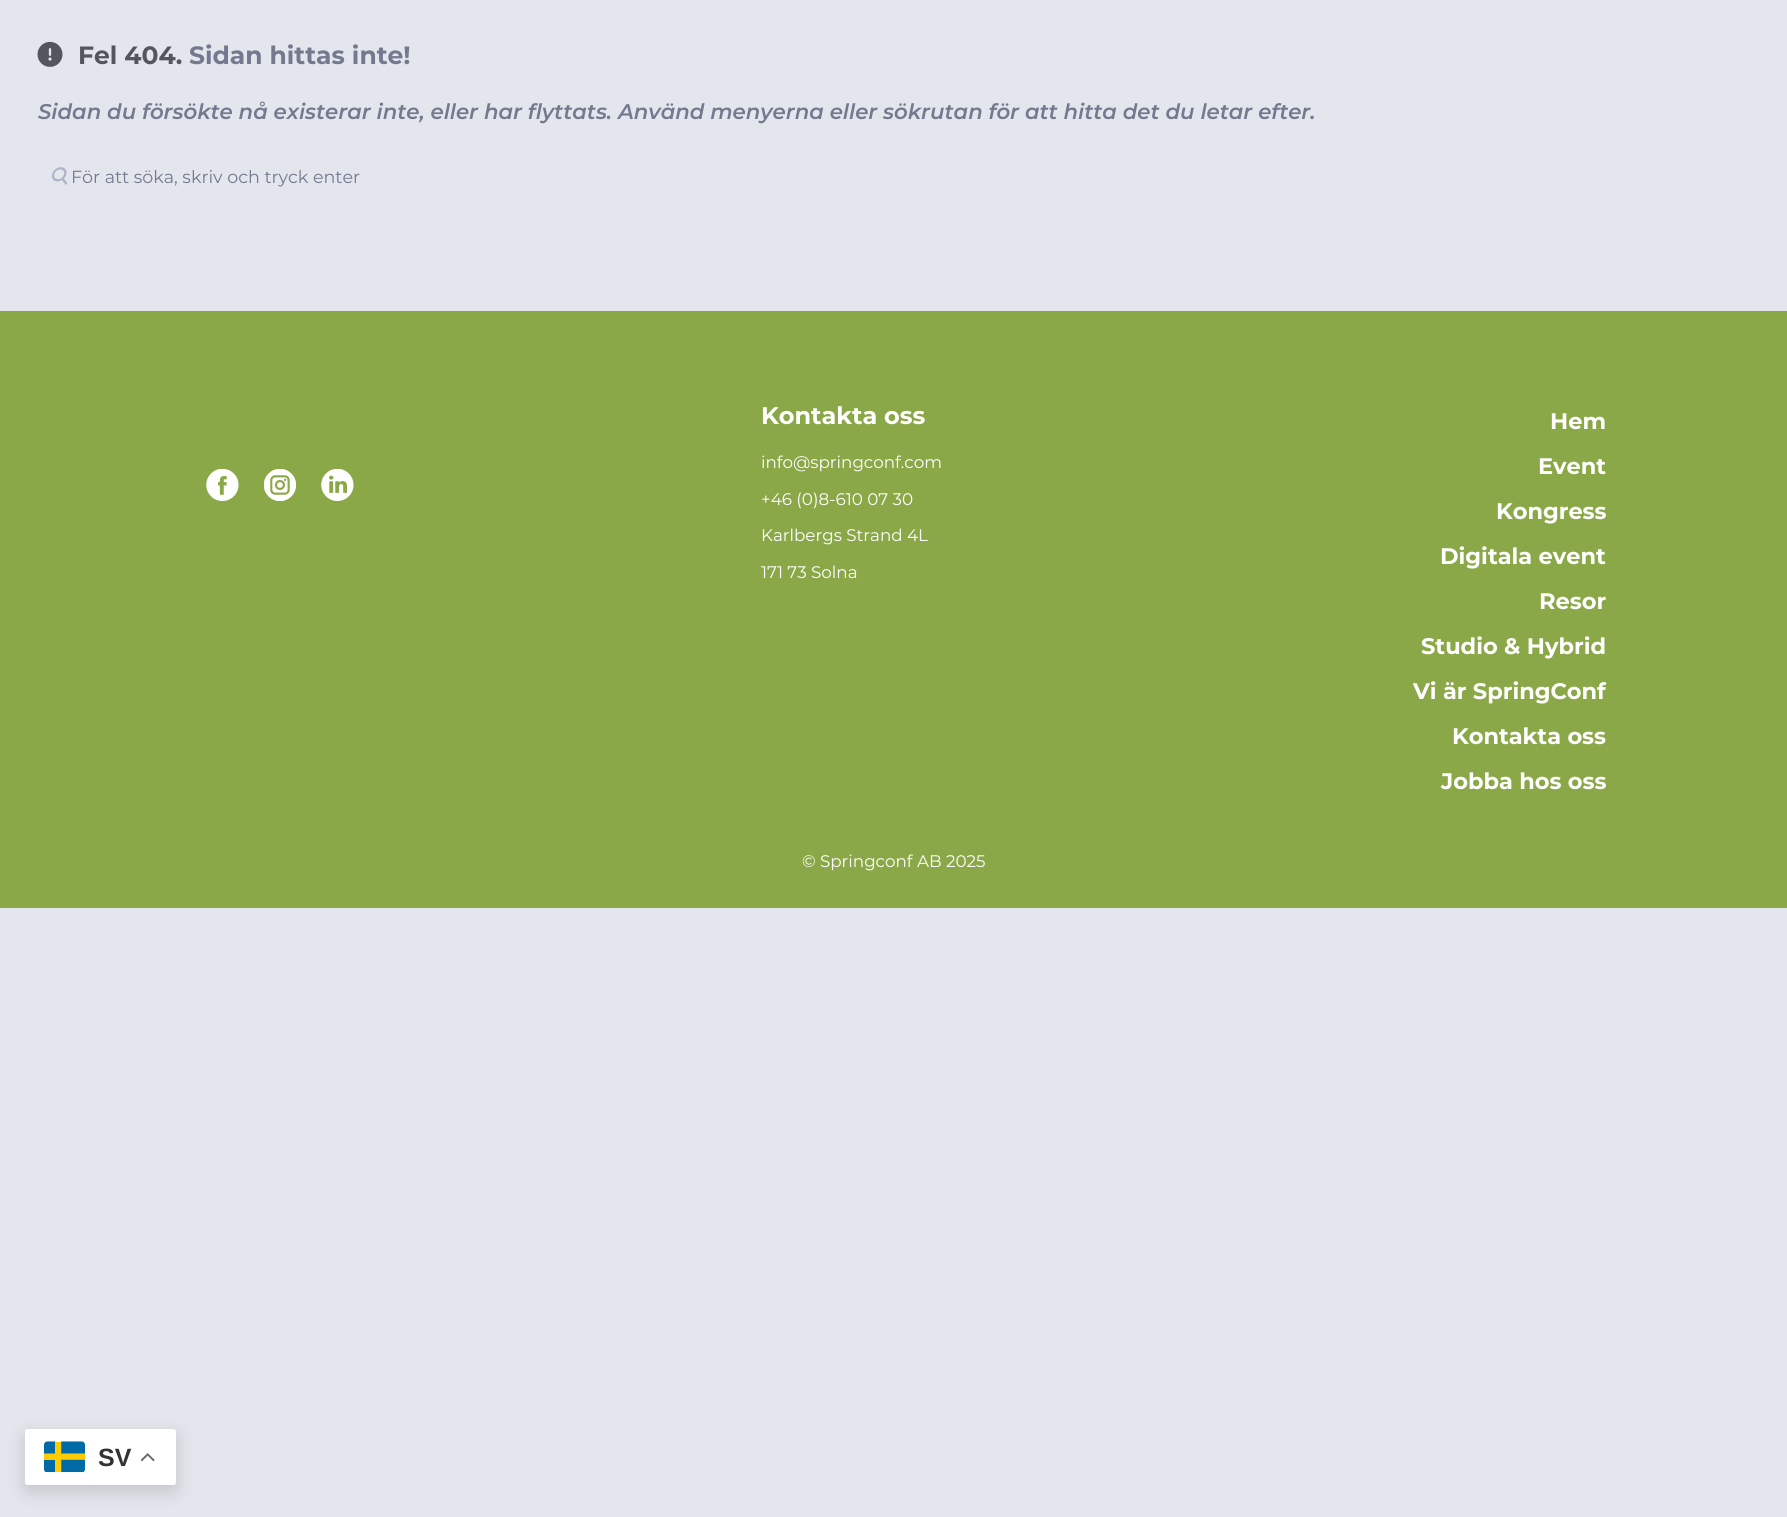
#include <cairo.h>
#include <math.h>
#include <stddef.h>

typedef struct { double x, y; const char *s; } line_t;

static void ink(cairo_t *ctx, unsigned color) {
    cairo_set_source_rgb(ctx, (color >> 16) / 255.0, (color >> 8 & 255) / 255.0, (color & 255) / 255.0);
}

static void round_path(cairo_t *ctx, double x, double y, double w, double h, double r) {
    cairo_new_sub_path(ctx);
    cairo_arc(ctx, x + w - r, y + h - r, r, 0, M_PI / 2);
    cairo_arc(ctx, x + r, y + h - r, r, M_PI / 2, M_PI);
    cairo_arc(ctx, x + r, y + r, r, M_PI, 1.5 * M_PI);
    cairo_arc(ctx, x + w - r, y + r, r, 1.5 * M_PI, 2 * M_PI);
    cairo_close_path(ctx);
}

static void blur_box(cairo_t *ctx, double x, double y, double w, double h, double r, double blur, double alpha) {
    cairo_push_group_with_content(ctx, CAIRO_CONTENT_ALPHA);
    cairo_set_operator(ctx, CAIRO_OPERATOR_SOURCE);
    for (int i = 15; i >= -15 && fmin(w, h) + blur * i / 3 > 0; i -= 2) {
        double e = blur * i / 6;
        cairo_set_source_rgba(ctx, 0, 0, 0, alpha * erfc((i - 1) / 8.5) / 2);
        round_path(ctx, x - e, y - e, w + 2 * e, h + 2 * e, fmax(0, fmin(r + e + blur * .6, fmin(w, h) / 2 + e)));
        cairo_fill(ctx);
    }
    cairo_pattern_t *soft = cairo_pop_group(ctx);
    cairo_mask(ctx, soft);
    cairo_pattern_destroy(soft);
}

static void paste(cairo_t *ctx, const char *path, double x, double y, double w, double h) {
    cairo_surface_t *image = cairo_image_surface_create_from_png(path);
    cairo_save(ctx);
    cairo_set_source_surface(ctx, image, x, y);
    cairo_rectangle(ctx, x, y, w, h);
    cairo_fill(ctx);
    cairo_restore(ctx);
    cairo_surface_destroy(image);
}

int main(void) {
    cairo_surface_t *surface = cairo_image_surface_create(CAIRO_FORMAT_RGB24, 1787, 1517);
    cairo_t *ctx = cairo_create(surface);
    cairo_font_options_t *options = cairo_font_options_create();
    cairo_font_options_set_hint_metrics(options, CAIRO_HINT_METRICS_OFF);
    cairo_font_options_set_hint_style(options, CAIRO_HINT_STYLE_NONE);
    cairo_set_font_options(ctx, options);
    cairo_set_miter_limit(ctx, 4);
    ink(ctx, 0xE4E6ED);
    cairo_paint(ctx);
    paste(ctx, "media/1.png", 37, 41, 26, 26);
    cairo_select_font_face(ctx, "Montserrat", CAIRO_FONT_SLANT_NORMAL, CAIRO_FONT_WEIGHT_BOLD);
    cairo_set_font_size(ctx, 25);
    ink(ctx, 0x55555F);
    cairo_move_to(ctx, 78, 64);
    cairo_show_text(ctx, "Fel 404.");
    ink(ctx, 0x73798E);
    cairo_move_to(ctx, 189, 64);
    cairo_show_text(ctx, "Sidan hittas inte!");
    cairo_select_font_face(ctx, "Montserrat Thin", CAIRO_FONT_SLANT_ITALIC, CAIRO_FONT_WEIGHT_NORMAL);
    cairo_set_font_size(ctx, 21.25);
    cairo_move_to(ctx, 38, 119);
    cairo_show_text(ctx, "Sidan du försökte nå existerar inte, eller har flyttats. Använd menyerna eller sökrutan för att hitta det du letar efter.");
    paste(ctx, "media/2.png", 51, 167, 17, 18);
    cairo_select_font_face(ctx, "Montserrat", CAIRO_FONT_SLANT_NORMAL, CAIRO_FONT_WEIGHT_NORMAL);
    cairo_set_font_size(ctx, 17.5);
    cairo_move_to(ctx, 71, 183);
    cairo_show_text(ctx, "För att söka, skriv och tryck enter");
    ink(ctx, 0x8BA849);
    cairo_rectangle(ctx, 0, 311, 1787, 597);
    cairo_fill(ctx);
    paste(ctx, "media/3.png", 206, 469, 33, 32);
    paste(ctx, "media/4.png", 264, 469, 32, 32);
    paste(ctx, "media/5.png", 321, 469, 33, 32);
    cairo_select_font_face(ctx, "Montserrat", CAIRO_FONT_SLANT_NORMAL, CAIRO_FONT_WEIGHT_BOLD);
    cairo_set_font_size(ctx, 24);
    ink(ctx, 0xFFFFFF);
    cairo_move_to(ctx, 761, 424);
    cairo_show_text(ctx, "Kontakta oss");
    cairo_select_font_face(ctx, "Montserrat", CAIRO_FONT_SLANT_NORMAL, CAIRO_FONT_WEIGHT_NORMAL);
    cairo_set_font_size(ctx, 16.75);
    {
        static const line_t items[] = {
            {761, 468, "info@springconf.com"},
            {761, 505, "+46 (0)8-610 07 30"},
            {761, 541, "Karlbergs Strand 4L"},
            {761, 578, "171 73 Solna"},
        };
        for (size_t i = 0; i < sizeof items / sizeof *items; i++) {
            cairo_move_to(ctx, items[i].x, items[i].y);
            cairo_show_text(ctx, items[i].s);
        }
    }
    cairo_select_font_face(ctx, "Montserrat", CAIRO_FONT_SLANT_NORMAL, CAIRO_FONT_WEIGHT_BOLD);
    cairo_set_font_size(ctx, 22.5);
    {
        static const line_t items[] = {
            {1550, 429, "Hem"},
            {1538, 474, "Event"},
            {1496, 519, "Kongress"},
            {1440, 564, "Digitala event"},
            {1539, 609, "Resor"},
            {1421, 654, "Studio & Hybrid"},
            {1413, 699, "Vi är SpringConf"},
            {1452, 744, "Kontakta oss"},
            {1441, 789, "Jobba hos oss"},
        };
        for (size_t i = 0; i < sizeof items / sizeof *items; i++) {
            cairo_move_to(ctx, items[i].x, items[i].y);
            cairo_show_text(ctx, items[i].s);
        }
    }
    cairo_select_font_face(ctx, "Montserrat", CAIRO_FONT_SLANT_NORMAL, CAIRO_FONT_WEIGHT_NORMAL);
    cairo_set_font_size(ctx, 16.75);
    cairo_move_to(ctx, 802, 867);
    cairo_show_text(ctx, "© Springconf AB 2025");
    ink(ctx, 0x000000);
    blur_box(ctx, 25, 1435, 151, 56, 2.5, 9.5, 0.15);
    ink(ctx, 0xFFFFFF);
    round_path(ctx, 25, 1429, 151, 56, 2.5);
    cairo_fill(ctx);
    paste(ctx, "media/6.png", 44, 1441, 41, 32);
    cairo_select_font_face(ctx, "Liberation Sans", CAIRO_FONT_SLANT_NORMAL, CAIRO_FONT_WEIGHT_BOLD);
    cairo_set_font_size(ctx, 25);
    ink(ctx, 0x333333);
    cairo_move_to(ctx, 98, 1466);
    cairo_show_text(ctx, "SV");
    paste(ctx, "media/7.png", 141, 1453, 14, 9);
    cairo_surface_write_to_png(surface, "image.png");
    cairo_font_options_destroy(options);
    cairo_destroy(ctx);
    cairo_surface_destroy(surface);
    return 0;
}
